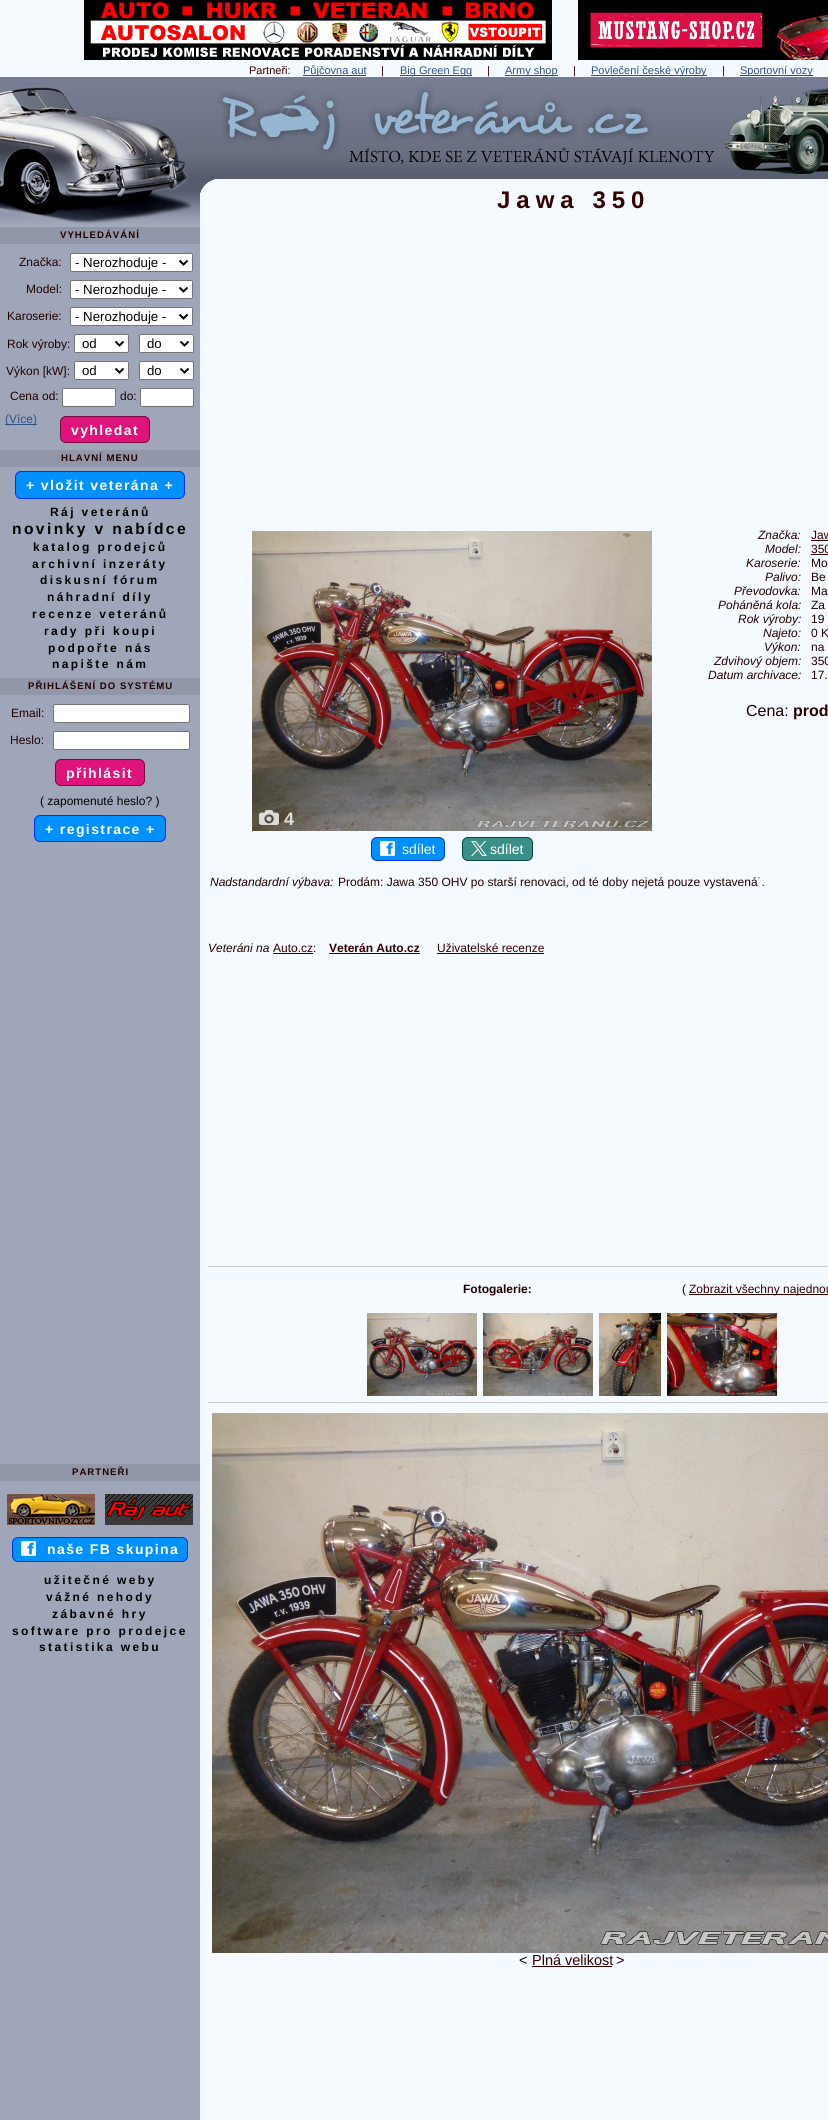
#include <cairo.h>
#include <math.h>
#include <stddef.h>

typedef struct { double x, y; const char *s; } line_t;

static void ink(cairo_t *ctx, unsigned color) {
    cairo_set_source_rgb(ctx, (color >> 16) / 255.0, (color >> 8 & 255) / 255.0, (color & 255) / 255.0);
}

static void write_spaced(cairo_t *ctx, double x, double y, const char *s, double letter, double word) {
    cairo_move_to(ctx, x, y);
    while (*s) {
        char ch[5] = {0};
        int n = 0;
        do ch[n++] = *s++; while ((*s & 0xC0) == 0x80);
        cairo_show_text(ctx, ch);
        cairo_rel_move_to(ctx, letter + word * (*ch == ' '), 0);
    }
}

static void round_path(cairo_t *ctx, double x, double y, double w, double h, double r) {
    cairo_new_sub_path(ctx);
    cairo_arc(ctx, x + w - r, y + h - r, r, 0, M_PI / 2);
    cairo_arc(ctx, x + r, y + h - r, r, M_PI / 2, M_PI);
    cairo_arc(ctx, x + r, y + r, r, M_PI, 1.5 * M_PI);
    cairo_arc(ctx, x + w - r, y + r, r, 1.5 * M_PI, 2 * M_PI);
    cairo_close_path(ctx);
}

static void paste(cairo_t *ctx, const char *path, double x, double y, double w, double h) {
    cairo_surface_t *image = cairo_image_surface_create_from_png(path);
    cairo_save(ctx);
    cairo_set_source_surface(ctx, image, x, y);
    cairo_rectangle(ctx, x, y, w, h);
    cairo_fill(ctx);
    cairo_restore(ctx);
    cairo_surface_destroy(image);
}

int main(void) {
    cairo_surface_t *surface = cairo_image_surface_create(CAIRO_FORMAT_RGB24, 828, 2120);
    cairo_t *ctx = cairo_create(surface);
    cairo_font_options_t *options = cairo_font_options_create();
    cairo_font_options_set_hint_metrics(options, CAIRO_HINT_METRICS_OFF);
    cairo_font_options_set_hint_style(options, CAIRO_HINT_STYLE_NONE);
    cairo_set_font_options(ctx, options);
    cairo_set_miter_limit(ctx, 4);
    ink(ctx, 0xF4FAFF);
    cairo_paint(ctx);
    paste(ctx, "media/1.png", 84, 0, 468, 60);
    paste(ctx, "media/2.png", 578, 0, 250, 60);
    cairo_select_font_face(ctx, "Liberation Sans", CAIRO_FONT_SLANT_NORMAL, CAIRO_FONT_WEIGHT_NORMAL);
    cairo_set_font_size(ctx, 11);
    ink(ctx, 0x330000);
    cairo_move_to(ctx, 249, 74);
    cairo_show_text(ctx, "Partneři:");
    ink(ctx, 0x314F87);
    cairo_rectangle(ctx, 303, 75, 63, 1);
    cairo_fill(ctx);
    cairo_move_to(ctx, 303, 74);
    cairo_show_text(ctx, "Půjčovna aut");
    ink(ctx, 0x330000);
    cairo_move_to(ctx, 381, 74);
    cairo_show_text(ctx, "|");
    ink(ctx, 0x314F87);
    cairo_rectangle(ctx, 400, 75, 72, 1);
    cairo_fill(ctx);
    cairo_move_to(ctx, 400, 74);
    cairo_show_text(ctx, "Big Green Egg");
    ink(ctx, 0x330000);
    cairo_move_to(ctx, 487, 74);
    cairo_show_text(ctx, "|");
    ink(ctx, 0x314F87);
    cairo_rectangle(ctx, 505, 75, 53, 1);
    cairo_fill(ctx);
    cairo_move_to(ctx, 505, 74);
    cairo_show_text(ctx, "Army shop");
    ink(ctx, 0x330000);
    cairo_move_to(ctx, 573, 74);
    cairo_show_text(ctx, "|");
    ink(ctx, 0x314F87);
    cairo_rectangle(ctx, 591, 75, 116, 1);
    cairo_fill(ctx);
    cairo_move_to(ctx, 591, 74);
    cairo_show_text(ctx, "Povlečení české výroby");
    ink(ctx, 0x330000);
    cairo_move_to(ctx, 722, 74);
    cairo_show_text(ctx, "|");
    ink(ctx, 0x314F87);
    cairo_rectangle(ctx, 740, 75, 73, 1);
    cairo_fill(ctx);
    cairo_move_to(ctx, 740, 74);
    cairo_show_text(ctx, "Sportovní vozy");
    paste(ctx, "media/3.png", 0, 77, 828, 150);
    cairo_select_font_face(ctx, "Liberation Sans", CAIRO_FONT_SLANT_NORMAL, CAIRO_FONT_WEIGHT_BOLD);
    cairo_set_font_size(ctx, 24);
    ink(ctx, 0x330000);
    write_spaced(ctx, 497, 208, "Jawa 350", 6, 0);
    ink(ctx, 0x9FA6B9);
    cairo_rectangle(ctx, 0, 244, 200, 1876);
    cairo_fill(ctx);
    ink(ctx, 0x9197A8);
    cairo_rectangle(ctx, 0, 227, 200, 17);
    cairo_fill(ctx);
    cairo_set_font_size(ctx, 9.6);
    ink(ctx, 0x220000);
    write_spaced(ctx, 60, 238, "VYHLEDÁVÁNÍ", 1, 0);
    cairo_select_font_face(ctx, "Liberation Sans", CAIRO_FONT_SLANT_NORMAL, CAIRO_FONT_WEIGHT_NORMAL);
    cairo_set_font_size(ctx, 12);
    cairo_move_to(ctx, 19, 266);
    cairo_show_text(ctx, "Značka:");
    ink(ctx, 0xFFFFFF);
    round_path(ctx, 70.5, 253.5, 122, 18, 1.5);
    cairo_fill_preserve(ctx);
    ink(ctx, 0x767676);
    cairo_set_line_width(ctx, 1);
    cairo_stroke(ctx);
    cairo_new_path(ctx);
    cairo_move_to(ctx, 179.5, 260.5);
    cairo_line_to(ctx, 183.5, 264.5);
    cairo_line_to(ctx, 187.5, 260.5);
    ink(ctx, 0x000000);
    cairo_set_line_width(ctx, 2);
    cairo_stroke(ctx);
    cairo_set_font_size(ctx, 13.25);
    cairo_move_to(ctx, 75, 267);
    cairo_show_text(ctx, "- Nerozhoduje -");
    cairo_set_font_size(ctx, 12);
    ink(ctx, 0x220000);
    cairo_move_to(ctx, 26, 293);
    cairo_show_text(ctx, "Model:");
    ink(ctx, 0xFFFFFF);
    round_path(ctx, 70.5, 280.5, 122, 18, 1.5);
    cairo_fill_preserve(ctx);
    ink(ctx, 0x767676);
    cairo_set_line_width(ctx, 1);
    cairo_stroke(ctx);
    cairo_new_path(ctx);
    cairo_move_to(ctx, 179.5, 287.5);
    cairo_line_to(ctx, 183.5, 291.5);
    cairo_line_to(ctx, 187.5, 287.5);
    ink(ctx, 0x000000);
    cairo_set_line_width(ctx, 2);
    cairo_stroke(ctx);
    cairo_set_font_size(ctx, 13.25);
    cairo_move_to(ctx, 75, 294);
    cairo_show_text(ctx, "- Nerozhoduje -");
    cairo_set_font_size(ctx, 12);
    ink(ctx, 0x220000);
    cairo_move_to(ctx, 7, 320);
    cairo_show_text(ctx, "Karoserie:");
    ink(ctx, 0xFFFFFF);
    round_path(ctx, 70.5, 307.5, 122, 18, 1.5);
    cairo_fill_preserve(ctx);
    ink(ctx, 0x767676);
    cairo_set_line_width(ctx, 1);
    cairo_stroke(ctx);
    cairo_new_path(ctx);
    cairo_move_to(ctx, 179.5, 314.5);
    cairo_line_to(ctx, 183.5, 318.5);
    cairo_line_to(ctx, 187.5, 314.5);
    ink(ctx, 0x000000);
    cairo_set_line_width(ctx, 2);
    cairo_stroke(ctx);
    cairo_set_font_size(ctx, 13.25);
    cairo_move_to(ctx, 75, 321);
    cairo_show_text(ctx, "- Nerozhoduje -");
    cairo_set_font_size(ctx, 12);
    ink(ctx, 0x220000);
    cairo_move_to(ctx, 7, 348);
    cairo_show_text(ctx, "Rok výroby:");
    ink(ctx, 0xFFFFFF);
    round_path(ctx, 74.5, 334.5, 54, 18, 1.5);
    cairo_fill_preserve(ctx);
    ink(ctx, 0x767676);
    cairo_set_line_width(ctx, 1);
    cairo_stroke(ctx);
    cairo_new_path(ctx);
    cairo_move_to(ctx, 115.5, 341.5);
    cairo_line_to(ctx, 119.5, 345.5);
    cairo_line_to(ctx, 123.5, 341.5);
    ink(ctx, 0x000000);
    cairo_set_line_width(ctx, 2);
    cairo_stroke(ctx);
    cairo_set_font_size(ctx, 13.25);
    cairo_move_to(ctx, 82, 348);
    cairo_show_text(ctx, "od");
    ink(ctx, 0xFFFFFF);
    round_path(ctx, 139.5, 334.5, 54, 18, 1.5);
    cairo_fill_preserve(ctx);
    ink(ctx, 0x767676);
    cairo_set_line_width(ctx, 1);
    cairo_stroke(ctx);
    cairo_new_path(ctx);
    cairo_move_to(ctx, 180.5, 341.5);
    cairo_line_to(ctx, 184.5, 345.5);
    cairo_line_to(ctx, 188.5, 341.5);
    ink(ctx, 0x000000);
    cairo_set_line_width(ctx, 2);
    cairo_stroke(ctx);
    cairo_move_to(ctx, 147, 348);
    cairo_show_text(ctx, "do");
    cairo_set_font_size(ctx, 12);
    ink(ctx, 0x220000);
    cairo_move_to(ctx, 6, 375);
    cairo_show_text(ctx, "Výkon [kW]:");
    ink(ctx, 0xFFFFFF);
    round_path(ctx, 74.5, 361.5, 54, 18, 1.5);
    cairo_fill_preserve(ctx);
    ink(ctx, 0x767676);
    cairo_set_line_width(ctx, 1);
    cairo_stroke(ctx);
    cairo_new_path(ctx);
    cairo_move_to(ctx, 115.5, 368.5);
    cairo_line_to(ctx, 119.5, 372.5);
    cairo_line_to(ctx, 123.5, 368.5);
    ink(ctx, 0x000000);
    cairo_set_line_width(ctx, 2);
    cairo_stroke(ctx);
    cairo_set_font_size(ctx, 13.25);
    cairo_move_to(ctx, 82, 375);
    cairo_show_text(ctx, "od");
    ink(ctx, 0xFFFFFF);
    round_path(ctx, 139.5, 361.5, 54, 18, 1.5);
    cairo_fill_preserve(ctx);
    ink(ctx, 0x767676);
    cairo_set_line_width(ctx, 1);
    cairo_stroke(ctx);
    cairo_new_path(ctx);
    cairo_move_to(ctx, 180.5, 368.5);
    cairo_line_to(ctx, 184.5, 372.5);
    cairo_line_to(ctx, 188.5, 368.5);
    ink(ctx, 0x000000);
    cairo_set_line_width(ctx, 2);
    cairo_stroke(ctx);
    cairo_move_to(ctx, 147, 375);
    cairo_show_text(ctx, "do");
    cairo_set_font_size(ctx, 12);
    ink(ctx, 0x220000);
    cairo_move_to(ctx, 10, 400);
    cairo_show_text(ctx, "Cena od:");
    ink(ctx, 0xFFFFFF);
    round_path(ctx, 62.5, 388.5, 53, 18, 1.5);
    cairo_fill_preserve(ctx);
    ink(ctx, 0x767676);
    cairo_set_line_width(ctx, 1);
    cairo_stroke(ctx);
    ink(ctx, 0x220000);
    cairo_move_to(ctx, 120, 400);
    cairo_show_text(ctx, "do:");
    ink(ctx, 0xFFFFFF);
    round_path(ctx, 140.5, 388.5, 53, 18, 1.5);
    cairo_fill_preserve(ctx);
    ink(ctx, 0x767676);
    cairo_stroke(ctx);
    ink(ctx, 0x314F87);
    cairo_rectangle(ctx, 5, 424, 32, 1);
    cairo_fill(ctx);
    cairo_move_to(ctx, 5, 423);
    cairo_show_text(ctx, "(Více)");
    ink(ctx, 0xDE137B);
    round_path(ctx, 60.5, 416.5, 89, 26, 5.5);
    cairo_fill_preserve(ctx);
    ink(ctx, 0x7A0642);
    cairo_stroke(ctx);
    cairo_select_font_face(ctx, "Liberation Sans", CAIRO_FONT_SLANT_NORMAL, CAIRO_FONT_WEIGHT_BOLD);
    cairo_set_font_size(ctx, 14);
    ink(ctx, 0xFFFFFF);
    write_spaced(ctx, 71, 435, "vyhledat", 1.4, 0);
    ink(ctx, 0x9197A8);
    cairo_rectangle(ctx, 0, 450, 200, 17);
    cairo_fill(ctx);
    cairo_set_font_size(ctx, 9.6);
    ink(ctx, 0x220000);
    write_spaced(ctx, 61, 461, "HLAVNÍ MENU", 1, 0);
    ink(ctx, 0x0090FF);
    round_path(ctx, 15.5, 471.5, 169, 27, 5.5);
    cairo_fill_preserve(ctx);
    ink(ctx, 0x0030FF);
    cairo_stroke(ctx);
    cairo_set_font_size(ctx, 14);
    ink(ctx, 0xFFFFFF);
    write_spaced(ctx, 26, 490, "+ vložit veterána +", 1.4, 0);
    cairo_set_font_size(ctx, 12);
    ink(ctx, 0x000000);
    write_spaced(ctx, 50, 516, "Ráj veteránů", 2.4, 0);
    cairo_set_font_size(ctx, 15.6);
    write_spaced(ctx, 12, 534, "novinky v nabídce", 2.4, 0);
    cairo_set_font_size(ctx, 12);
    {
        static const line_t items[] = {
            {33, 551, "katalog prodejců"},
            {32, 568, "archivní inzeráty"},
            {40, 584, "diskusní fórum"},
            {47, 601, "náhradní díly"},
            {32, 618, "recenze veteránů"},
            {44, 635, "rady při koupi"},
            {48, 652, "podpořte nás"},
            {52, 668, "napište nám"},
        };
        for (size_t i = 0; i < sizeof items / sizeof *items; i++) {
            write_spaced(ctx, items[i].x, items[i].y, items[i].s, 2.4, 0);
        }
    }
    ink(ctx, 0x9197A8);
    cairo_rectangle(ctx, 0, 678, 200, 17);
    cairo_fill(ctx);
    cairo_set_font_size(ctx, 9.6);
    ink(ctx, 0x220000);
    write_spaced(ctx, 28, 689, "PŘIHLÁŠENÍ DO SYSTÉMU", 1, 0);
    cairo_select_font_face(ctx, "Liberation Sans", CAIRO_FONT_SLANT_NORMAL, CAIRO_FONT_WEIGHT_NORMAL);
    cairo_set_font_size(ctx, 12);
    cairo_move_to(ctx, 11, 717);
    cairo_show_text(ctx, "Email:");
    ink(ctx, 0xFFFFFF);
    round_path(ctx, 53.5, 704.5, 136, 18, 1.5);
    cairo_fill_preserve(ctx);
    ink(ctx, 0x767676);
    cairo_stroke(ctx);
    ink(ctx, 0x220000);
    cairo_move_to(ctx, 10, 744);
    cairo_show_text(ctx, "Heslo:");
    ink(ctx, 0xFFFFFF);
    round_path(ctx, 53.5, 731.5, 136, 18, 1.5);
    cairo_fill_preserve(ctx);
    ink(ctx, 0x767676);
    cairo_stroke(ctx);
    ink(ctx, 0xDE137B);
    round_path(ctx, 55.5, 759.5, 89, 26, 5.5);
    cairo_fill_preserve(ctx);
    ink(ctx, 0x7A0642);
    cairo_stroke(ctx);
    cairo_select_font_face(ctx, "Liberation Sans", CAIRO_FONT_SLANT_NORMAL, CAIRO_FONT_WEIGHT_BOLD);
    cairo_set_font_size(ctx, 14);
    ink(ctx, 0xFFFFFF);
    write_spaced(ctx, 66, 778, "přihlásit", 1.4, 0);
    cairo_select_font_face(ctx, "Liberation Sans", CAIRO_FONT_SLANT_NORMAL, CAIRO_FONT_WEIGHT_NORMAL);
    cairo_set_font_size(ctx, 12);
    ink(ctx, 0x000000);
    cairo_move_to(ctx, 40, 805);
    cairo_show_text(ctx, "( zapomenuté heslo? )");
    ink(ctx, 0x0090FF);
    round_path(ctx, 34.5, 815.5, 131, 26, 5.5);
    cairo_fill_preserve(ctx);
    ink(ctx, 0x0030FF);
    cairo_stroke(ctx);
    cairo_select_font_face(ctx, "Liberation Sans", CAIRO_FONT_SLANT_NORMAL, CAIRO_FONT_WEIGHT_BOLD);
    cairo_set_font_size(ctx, 14);
    ink(ctx, 0xFFFFFF);
    write_spaced(ctx, 45, 834, "+ registrace +", 1.4, 0);
    ink(ctx, 0x9197A8);
    cairo_rectangle(ctx, 0, 1464, 200, 17);
    cairo_fill(ctx);
    cairo_set_font_size(ctx, 9.6);
    ink(ctx, 0x220000);
    write_spaced(ctx, 72, 1475, "PARTNEŘI", 1, 0);
    paste(ctx, "media/4.png", 7, 1494, 88, 31);
    paste(ctx, "media/5.png", 105, 1494, 88, 31);
    ink(ctx, 0x0090FF);
    round_path(ctx, 12.5, 1537.5, 175, 24, 5.5);
    cairo_fill_preserve(ctx);
    ink(ctx, 0x0030FF);
    cairo_stroke(ctx);
    paste(ctx, "media/6.png", 21, 1541, 15, 15);
    cairo_set_font_size(ctx, 14);
    ink(ctx, 0xFFFFFF);
    write_spaced(ctx, 47, 1554, "naše FB skupina", 1.4, 0);
    cairo_set_font_size(ctx, 12);
    ink(ctx, 0x000000);
    {
        static const line_t items[] = {
            {44, 1584, "užitečné weby"},
            {46, 1601, "vážné nehody"},
            {52, 1618, "zábavné hry"},
            {12, 1635, "software pro prodejce"},
            {39, 1651, "statistika webu"},
        };
        for (size_t i = 0; i < sizeof items / sizeof *items; i++) {
            write_spaced(ctx, items[i].x, items[i].y, items[i].s, 2.4, 0);
        }
    }
    cairo_select_font_face(ctx, "Liberation Sans", CAIRO_FONT_SLANT_ITALIC, CAIRO_FONT_WEIGHT_NORMAL);
    ink(ctx, 0x220000);
    cairo_move_to(ctx, 758, 539);
    cairo_show_text(ctx, "Značka:");
    cairo_select_font_face(ctx, "Liberation Sans", CAIRO_FONT_SLANT_NORMAL, CAIRO_FONT_WEIGHT_NORMAL);
    ink(ctx, 0x330000);
    cairo_move_to(ctx, 811, 539);
    cairo_show_text(ctx, "Jaw");
    cairo_rectangle(ctx, 811, 540, 17, 1);
    cairo_fill(ctx);
    cairo_select_font_face(ctx, "Liberation Sans", CAIRO_FONT_SLANT_ITALIC, CAIRO_FONT_WEIGHT_NORMAL);
    ink(ctx, 0x220000);
    cairo_move_to(ctx, 765, 553);
    cairo_show_text(ctx, "Model:");
    cairo_select_font_face(ctx, "Liberation Sans", CAIRO_FONT_SLANT_NORMAL, CAIRO_FONT_WEIGHT_NORMAL);
    ink(ctx, 0x330000);
    cairo_move_to(ctx, 811, 553);
    cairo_show_text(ctx, "350");
    cairo_rectangle(ctx, 811, 554, 17, 1);
    cairo_fill(ctx);
    cairo_select_font_face(ctx, "Liberation Sans", CAIRO_FONT_SLANT_ITALIC, CAIRO_FONT_WEIGHT_NORMAL);
    ink(ctx, 0x220000);
    cairo_move_to(ctx, 746, 567);
    cairo_show_text(ctx, "Karoserie:");
    cairo_select_font_face(ctx, "Liberation Sans", CAIRO_FONT_SLANT_NORMAL, CAIRO_FONT_WEIGHT_NORMAL);
    cairo_move_to(ctx, 811, 567);
    cairo_show_text(ctx, "Mo");
    cairo_select_font_face(ctx, "Liberation Sans", CAIRO_FONT_SLANT_ITALIC, CAIRO_FONT_WEIGHT_NORMAL);
    cairo_move_to(ctx, 765, 581);
    cairo_show_text(ctx, "Palivo:");
    cairo_select_font_face(ctx, "Liberation Sans", CAIRO_FONT_SLANT_NORMAL, CAIRO_FONT_WEIGHT_NORMAL);
    cairo_move_to(ctx, 811, 581);
    cairo_show_text(ctx, "Be");
    cairo_select_font_face(ctx, "Liberation Sans", CAIRO_FONT_SLANT_ITALIC, CAIRO_FONT_WEIGHT_NORMAL);
    cairo_move_to(ctx, 734, 595);
    cairo_show_text(ctx, "Převodovka:");
    cairo_select_font_face(ctx, "Liberation Sans", CAIRO_FONT_SLANT_NORMAL, CAIRO_FONT_WEIGHT_NORMAL);
    cairo_move_to(ctx, 811, 595);
    cairo_show_text(ctx, "Ma");
    cairo_select_font_face(ctx, "Liberation Sans", CAIRO_FONT_SLANT_ITALIC, CAIRO_FONT_WEIGHT_NORMAL);
    cairo_move_to(ctx, 718, 609);
    cairo_show_text(ctx, "Poháněná kola:");
    cairo_select_font_face(ctx, "Liberation Sans", CAIRO_FONT_SLANT_NORMAL, CAIRO_FONT_WEIGHT_NORMAL);
    cairo_move_to(ctx, 811, 609);
    cairo_show_text(ctx, "Za");
    cairo_select_font_face(ctx, "Liberation Sans", CAIRO_FONT_SLANT_ITALIC, CAIRO_FONT_WEIGHT_NORMAL);
    cairo_move_to(ctx, 738, 623);
    cairo_show_text(ctx, "Rok výroby:");
    cairo_select_font_face(ctx, "Liberation Sans", CAIRO_FONT_SLANT_NORMAL, CAIRO_FONT_WEIGHT_NORMAL);
    cairo_move_to(ctx, 811, 623);
    cairo_show_text(ctx, "19");
    cairo_select_font_face(ctx, "Liberation Sans", CAIRO_FONT_SLANT_ITALIC, CAIRO_FONT_WEIGHT_NORMAL);
    cairo_move_to(ctx, 763, 637);
    cairo_show_text(ctx, "Najeto:");
    cairo_select_font_face(ctx, "Liberation Sans", CAIRO_FONT_SLANT_NORMAL, CAIRO_FONT_WEIGHT_NORMAL);
    cairo_move_to(ctx, 811, 637);
    cairo_show_text(ctx, "0 K");
    cairo_select_font_face(ctx, "Liberation Sans", CAIRO_FONT_SLANT_ITALIC, CAIRO_FONT_WEIGHT_NORMAL);
    cairo_move_to(ctx, 764, 651);
    cairo_show_text(ctx, "Výkon:");
    cairo_select_font_face(ctx, "Liberation Sans", CAIRO_FONT_SLANT_NORMAL, CAIRO_FONT_WEIGHT_NORMAL);
    cairo_move_to(ctx, 811, 651);
    cairo_show_text(ctx, "na");
    cairo_select_font_face(ctx, "Liberation Sans", CAIRO_FONT_SLANT_ITALIC, CAIRO_FONT_WEIGHT_NORMAL);
    cairo_move_to(ctx, 714, 665);
    cairo_show_text(ctx, "Zdvihový objem:");
    cairo_select_font_face(ctx, "Liberation Sans", CAIRO_FONT_SLANT_NORMAL, CAIRO_FONT_WEIGHT_NORMAL);
    cairo_move_to(ctx, 811, 665);
    cairo_show_text(ctx, "350");
    cairo_select_font_face(ctx, "Liberation Sans", CAIRO_FONT_SLANT_ITALIC, CAIRO_FONT_WEIGHT_NORMAL);
    cairo_move_to(ctx, 708, 679);
    cairo_show_text(ctx, "Datum archivace:");
    cairo_select_font_face(ctx, "Liberation Sans", CAIRO_FONT_SLANT_NORMAL, CAIRO_FONT_WEIGHT_NORMAL);
    cairo_move_to(ctx, 811, 679);
    cairo_show_text(ctx, "17.");
    cairo_set_font_size(ctx, 16);
    cairo_move_to(ctx, 746, 716);
    cairo_show_text(ctx, "Cena:");
    cairo_select_font_face(ctx, "Liberation Sans", CAIRO_FONT_SLANT_NORMAL, CAIRO_FONT_WEIGHT_BOLD);
    cairo_move_to(ctx, 793, 716);
    cairo_show_text(ctx, "prod");
    paste(ctx, "media/7.png", 252, 531, 400, 300);
    paste(ctx, "media/8.png", 259, 810, 20, 15);
    cairo_set_font_size(ctx, 18);
    ink(ctx, 0xDFDDDA);
    cairo_move_to(ctx, 284, 825);
    cairo_show_text(ctx, "4");
    ink(ctx, 0x0090FF);
    round_path(ctx, 371.5, 837.5, 73, 23, 5.5);
    cairo_fill_preserve(ctx);
    ink(ctx, 0x0030FF);
    cairo_stroke(ctx);
    paste(ctx, "media/6.png", 380, 841, 15, 15);
    cairo_select_font_face(ctx, "Liberation Sans", CAIRO_FONT_SLANT_NORMAL, CAIRO_FONT_WEIGHT_NORMAL);
    cairo_set_font_size(ctx, 14);
    ink(ctx, 0xFFFFFF);
    cairo_move_to(ctx, 402, 854);
    cairo_show_text(ctx, "sdílet");
    ink(ctx, 0x3A8F88);
    round_path(ctx, 462.5, 837.5, 70, 23, 5.5);
    cairo_fill_preserve(ctx);
    ink(ctx, 0x084641);
    cairo_stroke(ctx);
    paste(ctx, "media/9.png", 471, 841, 16, 15);
    ink(ctx, 0xFFFFFF);
    cairo_move_to(ctx, 490, 854);
    cairo_show_text(ctx, "sdílet");
    cairo_select_font_face(ctx, "Liberation Sans", CAIRO_FONT_SLANT_ITALIC, CAIRO_FONT_WEIGHT_NORMAL);
    cairo_set_font_size(ctx, 12);
    ink(ctx, 0x220000);
    cairo_move_to(ctx, 210, 886);
    cairo_show_text(ctx, "Nadstandardní výbava:");
    cairo_select_font_face(ctx, "Liberation Sans", CAIRO_FONT_SLANT_NORMAL, CAIRO_FONT_WEIGHT_NORMAL);
    cairo_move_to(ctx, 338, 886);
    cairo_show_text(ctx, "Prodám: Jawa 350 OHV po starší renovaci, od té doby nejetá pouze vystavená˙.");
    cairo_select_font_face(ctx, "Liberation Sans", CAIRO_FONT_SLANT_ITALIC, CAIRO_FONT_WEIGHT_NORMAL);
    cairo_move_to(ctx, 208, 952);
    cairo_show_text(ctx, "Veteráni na");
    cairo_select_font_face(ctx, "Liberation Sans", CAIRO_FONT_SLANT_NORMAL, CAIRO_FONT_WEIGHT_NORMAL);
    ink(ctx, 0x330000);
    cairo_move_to(ctx, 273, 952);
    cairo_show_text(ctx, "Auto.cz");
    cairo_rectangle(ctx, 273, 953, 40, 1);
    cairo_fill(ctx);
    ink(ctx, 0x220000);
    cairo_move_to(ctx, 313, 952);
    cairo_show_text(ctx, ":");
    cairo_select_font_face(ctx, "Liberation Sans", CAIRO_FONT_SLANT_NORMAL, CAIRO_FONT_WEIGHT_BOLD);
    ink(ctx, 0x330000);
    cairo_move_to(ctx, 329, 952);
    cairo_show_text(ctx, "Veterán Auto.cz");
    cairo_rectangle(ctx, 329, 953, 91, 1);
    cairo_fill(ctx);
    cairo_select_font_face(ctx, "Liberation Sans", CAIRO_FONT_SLANT_NORMAL, CAIRO_FONT_WEIGHT_NORMAL);
    cairo_move_to(ctx, 437, 952);
    cairo_show_text(ctx, "Uživatelské recenze");
    cairo_rectangle(ctx, 437, 953, 107, 1);
    cairo_fill(ctx);
    ink(ctx, 0xCCCCCC);
    cairo_rectangle(ctx, 208, 1266, 620, 1);
    cairo_fill(ctx);
    cairo_select_font_face(ctx, "Liberation Sans", CAIRO_FONT_SLANT_NORMAL, CAIRO_FONT_WEIGHT_BOLD);
    ink(ctx, 0x220000);
    cairo_move_to(ctx, 463, 1293);
    cairo_show_text(ctx, "Fotogalerie:");
    cairo_select_font_face(ctx, "Liberation Sans", CAIRO_FONT_SLANT_NORMAL, CAIRO_FONT_WEIGHT_NORMAL);
    cairo_move_to(ctx, 682, 1293);
    cairo_show_text(ctx, "(");
    ink(ctx, 0x330000);
    cairo_rectangle(ctx, 689, 1294, 139, 1);
    cairo_fill(ctx);
    cairo_move_to(ctx, 689, 1293);
    cairo_show_text(ctx, "Zobrazit všechny najednou");
    paste(ctx, "media/10.png", 367, 1313, 110, 83);
    paste(ctx, "media/11.png", 483, 1313, 110, 83);
    paste(ctx, "media/12.png", 599, 1313, 62, 83);
    paste(ctx, "media/13.png", 667, 1313, 110, 83);
    ink(ctx, 0xCCCCCC);
    cairo_rectangle(ctx, 208, 1402, 620, 1);
    cairo_fill(ctx);
    paste(ctx, "media/14.png", 212, 1413, 616, 540);
    cairo_set_font_size(ctx, 14.5);
    ink(ctx, 0x220000);
    cairo_move_to(ctx, 519, 1965);
    cairo_show_text(ctx, "<");
    ink(ctx, 0x330000);
    cairo_move_to(ctx, 532, 1965);
    cairo_show_text(ctx, "Plná velikost");
    cairo_rectangle(ctx, 532, 1966, 80, 1);
    cairo_fill(ctx);
    ink(ctx, 0x220000);
    cairo_move_to(ctx, 616, 1965);
    cairo_show_text(ctx, ">");
    cairo_surface_write_to_png(surface, "image.png");
    cairo_font_options_destroy(options);
    cairo_destroy(ctx);
    cairo_surface_destroy(surface);
    return 0;
}
